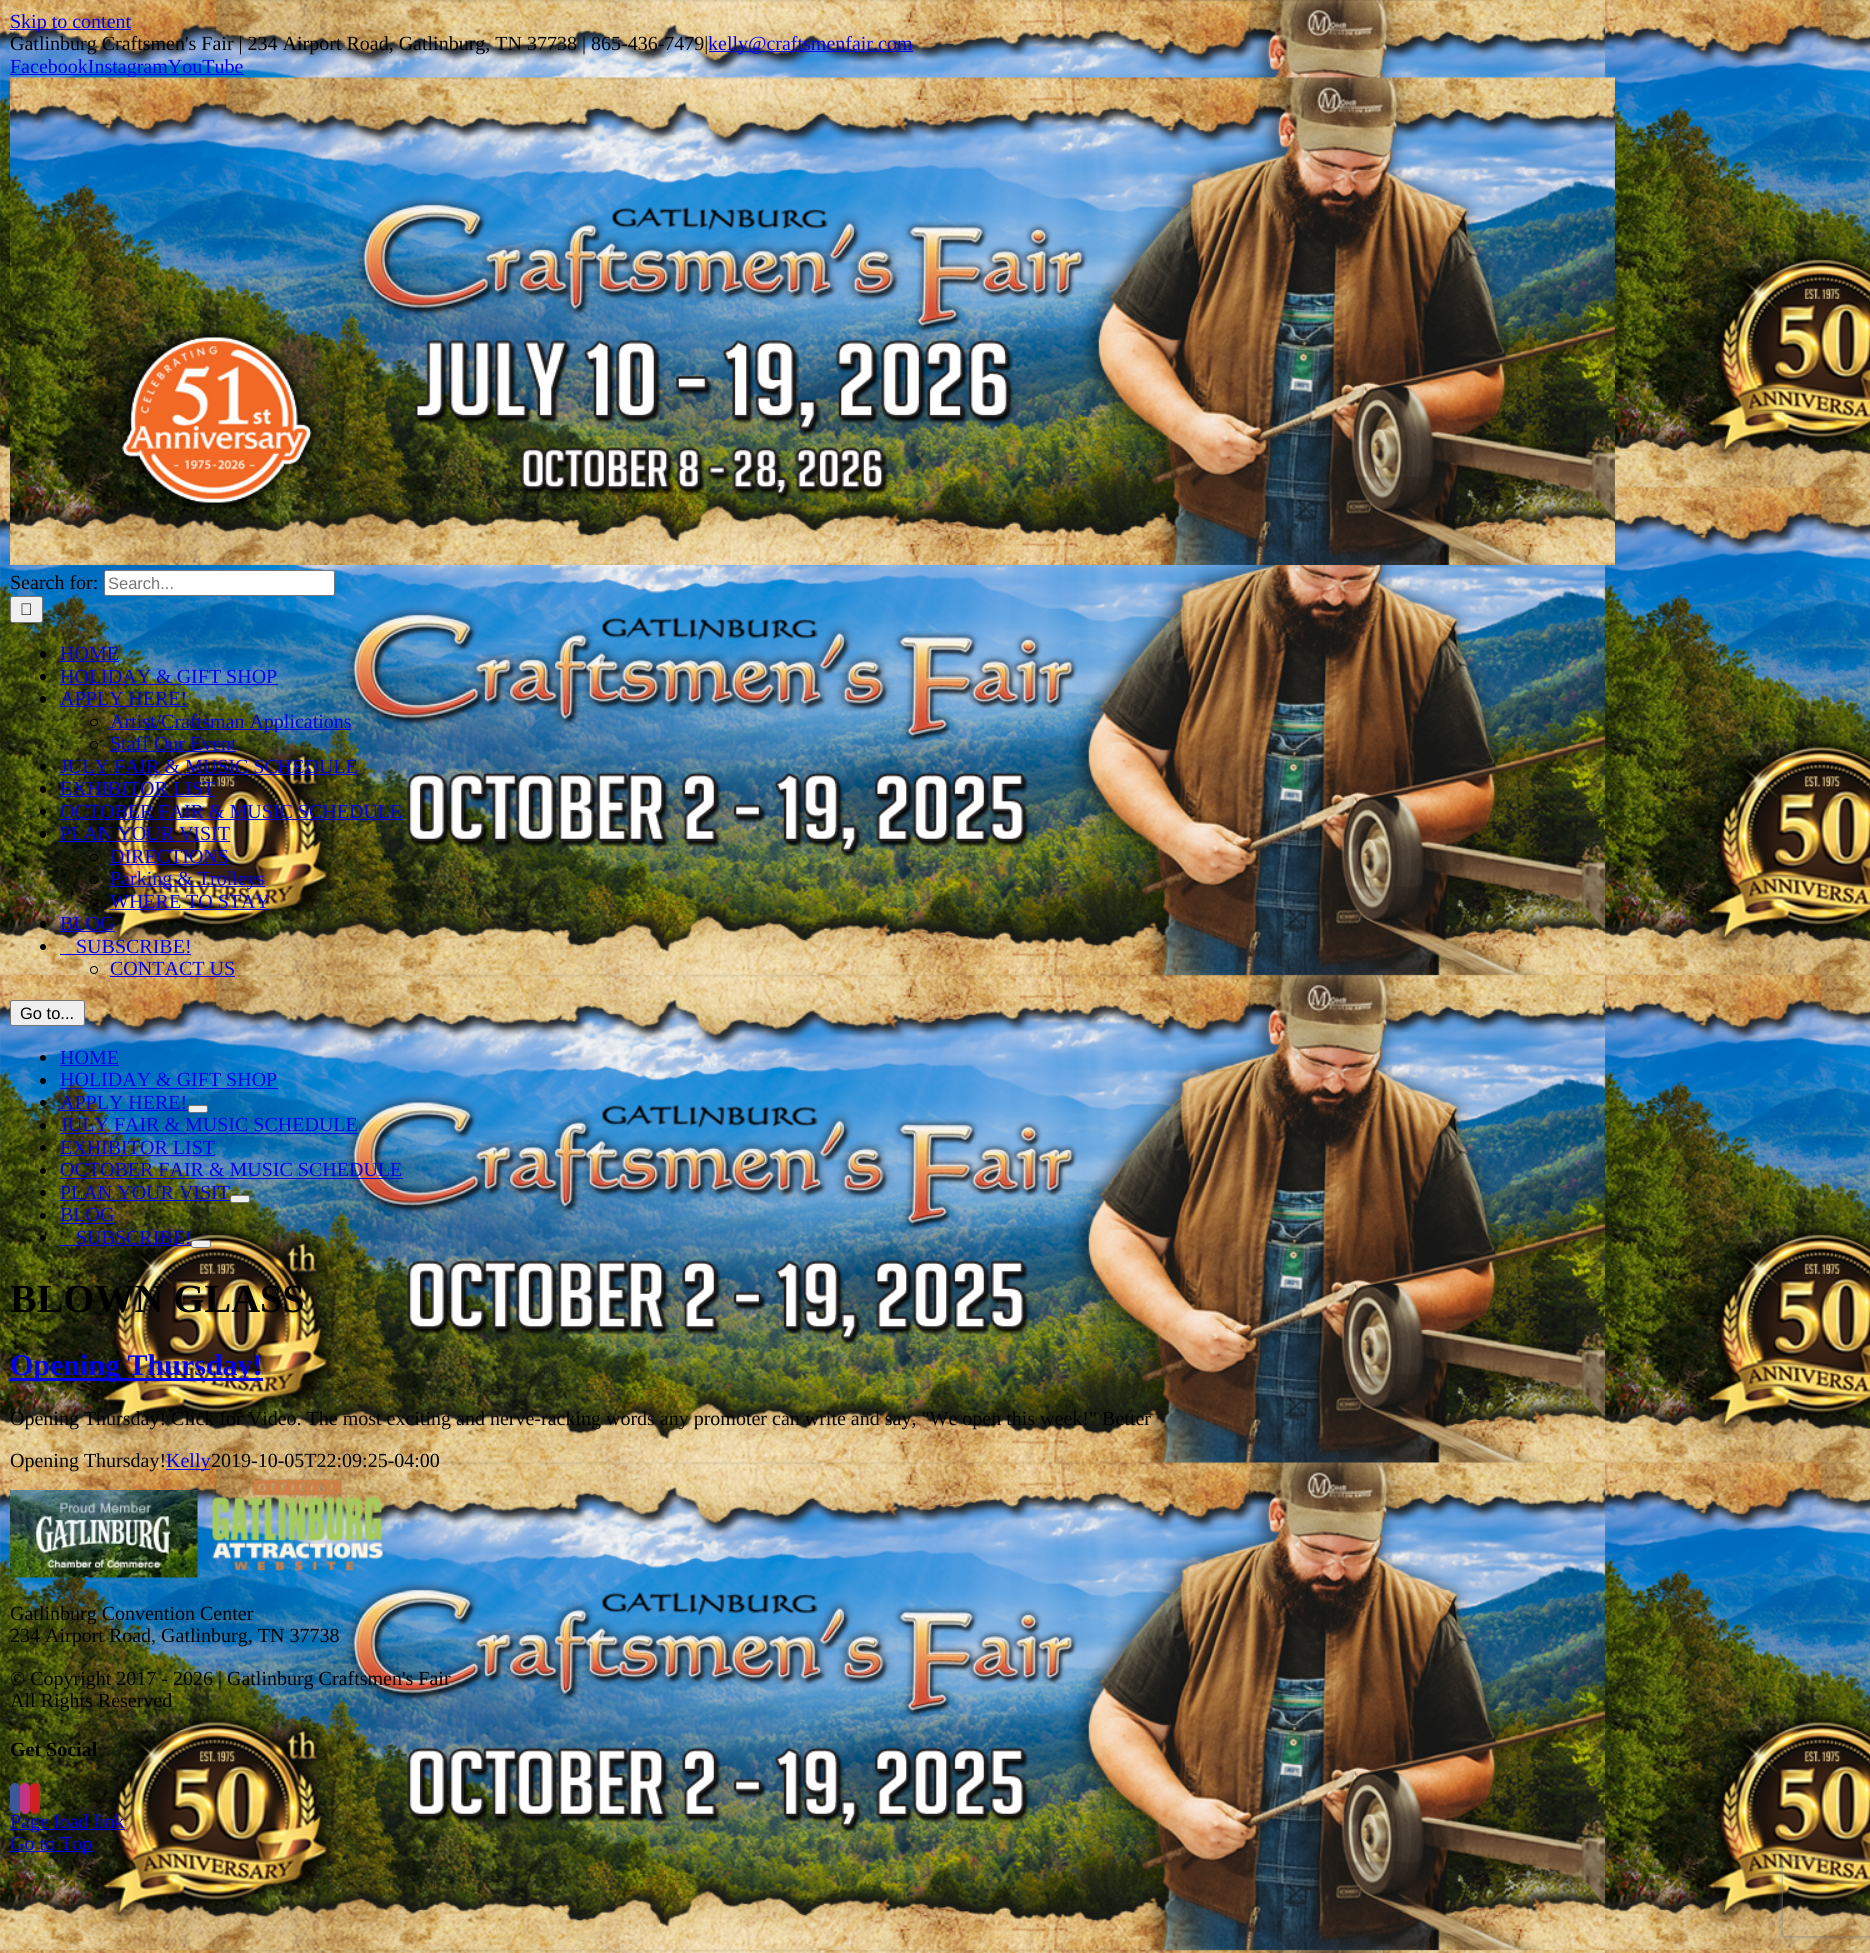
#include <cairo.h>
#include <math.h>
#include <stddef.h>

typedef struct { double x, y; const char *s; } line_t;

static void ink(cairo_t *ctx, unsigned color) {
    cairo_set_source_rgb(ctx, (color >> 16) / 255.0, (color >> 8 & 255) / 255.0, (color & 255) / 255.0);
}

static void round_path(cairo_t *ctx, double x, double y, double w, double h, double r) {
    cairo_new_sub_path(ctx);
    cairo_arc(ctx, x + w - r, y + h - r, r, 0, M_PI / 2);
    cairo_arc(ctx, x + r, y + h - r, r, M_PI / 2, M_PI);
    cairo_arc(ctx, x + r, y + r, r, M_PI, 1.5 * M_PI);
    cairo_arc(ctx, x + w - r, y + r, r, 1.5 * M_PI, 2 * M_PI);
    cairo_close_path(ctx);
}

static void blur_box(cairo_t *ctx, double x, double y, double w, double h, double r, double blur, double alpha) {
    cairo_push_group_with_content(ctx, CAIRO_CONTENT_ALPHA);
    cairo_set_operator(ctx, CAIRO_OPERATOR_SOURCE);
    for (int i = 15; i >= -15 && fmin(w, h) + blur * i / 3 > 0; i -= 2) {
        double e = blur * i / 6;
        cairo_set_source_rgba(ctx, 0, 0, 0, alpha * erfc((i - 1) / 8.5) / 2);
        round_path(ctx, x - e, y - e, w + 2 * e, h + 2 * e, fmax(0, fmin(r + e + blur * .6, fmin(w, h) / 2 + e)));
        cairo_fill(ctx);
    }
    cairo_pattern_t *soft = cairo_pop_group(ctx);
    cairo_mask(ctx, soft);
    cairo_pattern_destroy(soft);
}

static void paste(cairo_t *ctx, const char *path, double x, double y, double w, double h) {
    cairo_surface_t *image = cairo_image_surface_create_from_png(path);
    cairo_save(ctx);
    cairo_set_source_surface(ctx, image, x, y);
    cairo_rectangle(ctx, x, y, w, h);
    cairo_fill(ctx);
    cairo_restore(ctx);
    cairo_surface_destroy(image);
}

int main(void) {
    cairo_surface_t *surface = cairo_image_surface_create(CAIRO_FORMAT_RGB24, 1870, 1953);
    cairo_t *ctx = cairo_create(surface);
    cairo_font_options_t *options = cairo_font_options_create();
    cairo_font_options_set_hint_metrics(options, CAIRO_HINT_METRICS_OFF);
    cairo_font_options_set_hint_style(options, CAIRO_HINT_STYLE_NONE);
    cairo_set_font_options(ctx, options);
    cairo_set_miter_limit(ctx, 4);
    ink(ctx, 0xFFFFFF);
    cairo_paint(ctx);
    paste(ctx, "media/1.png", 0, 0, 1870, 1953);
    ink(ctx, 0x0000EE);
    cairo_rectangle(ctx, 10, 29, 121, 1);
    cairo_fill(ctx);
    cairo_select_font_face(ctx, "Liberation Serif", CAIRO_FONT_SLANT_NORMAL, CAIRO_FONT_WEIGHT_NORMAL);
    cairo_set_font_size(ctx, 20);
    cairo_move_to(ctx, 10, 28);
    cairo_show_text(ctx, "Skip to content");
    ink(ctx, 0x000000);
    cairo_move_to(ctx, 10, 50);
    cairo_show_text(ctx, "Gatlinburg Craftsmen's Fair | 234 Airport Road, Gatlinburg, TN 37738 | 865-436-7479|");
    ink(ctx, 0x0000EE);
    cairo_rectangle(ctx, 709, 51, 204, 1);
    cairo_fill(ctx);
    cairo_move_to(ctx, 708, 50);
    cairo_show_text(ctx, "kelly@craftsmenfair.com");
    cairo_rectangle(ctx, 10, 74, 234, 1);
    cairo_fill(ctx);
    cairo_move_to(ctx, 10, 73);
    cairo_show_text(ctx, "FacebookInstagramYouTube");
    paste(ctx, "media/2.png", 10, 77, 1605, 488);
    ink(ctx, 0x000000);
    cairo_move_to(ctx, 10, 589);
    cairo_show_text(ctx, "Search for:");
    ink(ctx, 0xFFFFFF);
    round_path(ctx, 104.5, 570.5, 230, 25, 2);
    cairo_fill_preserve(ctx);
    ink(ctx, 0x767676);
    cairo_set_line_width(ctx, 1);
    cairo_stroke(ctx);
    cairo_select_font_face(ctx, "Liberation Sans", CAIRO_FONT_SLANT_NORMAL, CAIRO_FONT_WEIGHT_NORMAL);
    cairo_set_font_size(ctx, 16.5);
    ink(ctx, 0x757575);
    cairo_move_to(ctx, 108, 589);
    cairo_show_text(ctx, "Search...");
    ink(ctx, 0xEFEFEF);
    round_path(ctx, 10.5, 596.5, 32, 26, 2);
    cairo_fill_preserve(ctx);
    ink(ctx, 0x767676);
    cairo_stroke(ctx);
    paste(ctx, "media/3.png", 21, 603, 10, 12);
    ink(ctx, 0x000000);
    round_path(ctx, 40, 651, 6, 7, 3);
    cairo_fill(ctx);
    cairo_select_font_face(ctx, "Liberation Serif", CAIRO_FONT_SLANT_NORMAL, CAIRO_FONT_WEIGHT_NORMAL);
    cairo_set_font_size(ctx, 20);
    ink(ctx, 0x0000EE);
    cairo_move_to(ctx, 60, 660);
    cairo_show_text(ctx, "HOME");
    cairo_rectangle(ctx, 60, 661, 59, 1);
    cairo_fill(ctx);
    ink(ctx, 0x000000);
    cairo_arc(ctx, 43, 677, 3, 0, 2 * M_PI);
    cairo_fill(ctx);
    ink(ctx, 0x0000EE);
    cairo_move_to(ctx, 60, 683);
    cairo_show_text(ctx, "HOLIDAY & GIFT SHOP");
    cairo_rectangle(ctx, 60, 684, 218, 1);
    cairo_fill(ctx);
    ink(ctx, 0x000000);
    round_path(ctx, 40, 696, 6, 7, 3);
    cairo_fill(ctx);
    ink(ctx, 0x0000EE);
    cairo_move_to(ctx, 60, 705);
    cairo_show_text(ctx, "APPLY HERE!");
    cairo_rectangle(ctx, 60, 706, 128, 1);
    cairo_fill(ctx);
    round_path(ctx, 90.5, 719.5, 7, 6, 3);
    ink(ctx, 0x000000);
    cairo_stroke(ctx);
    ink(ctx, 0x0000EE);
    cairo_rectangle(ctx, 110, 729, 241, 1);
    cairo_fill(ctx);
    cairo_move_to(ctx, 110, 728);
    cairo_show_text(ctx, "Artist/Craftsman Applications");
    cairo_new_path(ctx);
    cairo_arc(ctx, 94, 745, 3.5, 0, 2 * M_PI);
    ink(ctx, 0x000000);
    cairo_stroke(ctx);
    ink(ctx, 0x0000EE);
    cairo_move_to(ctx, 110, 750);
    cairo_show_text(ctx, "Staff Our Event");
    cairo_rectangle(ctx, 110, 751, 126, 1);
    cairo_fill(ctx);
    ink(ctx, 0x000000);
    cairo_arc(ctx, 43, 767, 3, 0, 2 * M_PI);
    cairo_fill(ctx);
    ink(ctx, 0x0000EE);
    cairo_move_to(ctx, 60, 773);
    cairo_show_text(ctx, "JULY FAIR & MUSIC SCHEDULE");
    cairo_rectangle(ctx, 60, 774, 298, 1);
    cairo_fill(ctx);
    ink(ctx, 0x000000);
    round_path(ctx, 40, 786, 6, 7, 3);
    cairo_fill(ctx);
    ink(ctx, 0x0000EE);
    cairo_move_to(ctx, 60, 795);
    cairo_show_text(ctx, "EXHIBITOR LIST");
    cairo_rectangle(ctx, 60, 796, 155, 1);
    cairo_fill(ctx);
    ink(ctx, 0x000000);
    cairo_arc(ctx, 43, 812, 3, 0, 2 * M_PI);
    cairo_fill(ctx);
    ink(ctx, 0x0000EE);
    cairo_move_to(ctx, 60, 818);
    cairo_show_text(ctx, "OCTOBER FAIR & MUSIC SCHEDULE");
    cairo_rectangle(ctx, 60, 819, 343, 1);
    cairo_fill(ctx);
    ink(ctx, 0x000000);
    round_path(ctx, 40, 831, 6, 7, 3);
    cairo_fill(ctx);
    ink(ctx, 0x0000EE);
    cairo_move_to(ctx, 60, 840);
    cairo_show_text(ctx, "PLAN YOUR VISIT");
    cairo_rectangle(ctx, 60, 841, 170, 1);
    cairo_fill(ctx);
    round_path(ctx, 90.5, 854.5, 7, 6, 3);
    ink(ctx, 0x000000);
    cairo_stroke(ctx);
    ink(ctx, 0x0000EE);
    cairo_move_to(ctx, 110, 863);
    cairo_show_text(ctx, "DIRECTIONS");
    cairo_rectangle(ctx, 110, 864, 119, 1);
    cairo_fill(ctx);
    cairo_arc(ctx, 94, 880, 3.5, 0, 2 * M_PI);
    ink(ctx, 0x000000);
    cairo_stroke(ctx);
    ink(ctx, 0x0000EE);
    cairo_rectangle(ctx, 110, 886, 155, 1);
    cairo_fill(ctx);
    cairo_move_to(ctx, 110, 885);
    cairo_show_text(ctx, "Parking & Trolleys");
    round_path(ctx, 90.5, 899.5, 7, 6, 3);
    ink(ctx, 0x000000);
    cairo_stroke(ctx);
    ink(ctx, 0x0000EE);
    cairo_move_to(ctx, 110, 908);
    cairo_show_text(ctx, "WHERE TO STAY");
    cairo_rectangle(ctx, 110, 909, 160, 1);
    cairo_fill(ctx);
    ink(ctx, 0x000000);
    round_path(ctx, 40, 921, 6, 7, 3);
    cairo_fill(ctx);
    ink(ctx, 0x0000EE);
    cairo_move_to(ctx, 60, 930);
    cairo_show_text(ctx, "BLOG");
    cairo_rectangle(ctx, 60, 931, 55, 1);
    cairo_fill(ctx);
    ink(ctx, 0x000000);
    cairo_arc(ctx, 43, 947, 3, 0, 2 * M_PI);
    cairo_fill(ctx);
    ink(ctx, 0x0000EE);
    cairo_move_to(ctx, 76, 953);
    cairo_show_text(ctx, "SUBSCRIBE!");
    cairo_rectangle(ctx, 60, 954, 131, 1);
    cairo_fill(ctx);
    cairo_arc(ctx, 94, 970, 3.5, 0, 2 * M_PI);
    ink(ctx, 0x000000);
    cairo_stroke(ctx);
    ink(ctx, 0x0000EE);
    cairo_move_to(ctx, 110, 975);
    cairo_show_text(ctx, "CONTACT US");
    cairo_rectangle(ctx, 110, 976, 125, 1);
    cairo_fill(ctx);
    ink(ctx, 0xEFEFEF);
    round_path(ctx, 10.5, 1000.5, 74, 25, 2);
    cairo_fill_preserve(ctx);
    ink(ctx, 0x767676);
    cairo_stroke(ctx);
    cairo_select_font_face(ctx, "Liberation Sans", CAIRO_FONT_SLANT_NORMAL, CAIRO_FONT_WEIGHT_NORMAL);
    cairo_set_font_size(ctx, 16.5);
    ink(ctx, 0x000000);
    cairo_move_to(ctx, 20, 1019);
    cairo_show_text(ctx, "Go to...");
    cairo_new_path(ctx);
    cairo_arc(ctx, 43, 1058, 3, 0, 2 * M_PI);
    cairo_fill(ctx);
    cairo_select_font_face(ctx, "Liberation Serif", CAIRO_FONT_SLANT_NORMAL, CAIRO_FONT_WEIGHT_NORMAL);
    cairo_set_font_size(ctx, 20);
    ink(ctx, 0x0000EE);
    cairo_move_to(ctx, 60, 1064);
    cairo_show_text(ctx, "HOME");
    cairo_rectangle(ctx, 60, 1065, 59, 1);
    cairo_fill(ctx);
    ink(ctx, 0x000000);
    cairo_arc(ctx, 43, 1081, 3, 0, 2 * M_PI);
    cairo_fill(ctx);
    ink(ctx, 0x0000EE);
    cairo_move_to(ctx, 60, 1086);
    cairo_show_text(ctx, "HOLIDAY & GIFT SHOP");
    cairo_rectangle(ctx, 60, 1088, 218, 1);
    cairo_fill(ctx);
    ink(ctx, 0x000000);
    cairo_arc(ctx, 43, 1103, 3, 0, 2 * M_PI);
    cairo_fill(ctx);
    ink(ctx, 0x0000EE);
    cairo_move_to(ctx, 60, 1109);
    cairo_show_text(ctx, "APPLY HERE!");
    cairo_rectangle(ctx, 60, 1110, 128, 1);
    cairo_fill(ctx);
    ink(ctx, 0xEFEFEF);
    round_path(ctx, 188.5, 1105.5, 19, 7, 2);
    cairo_fill_preserve(ctx);
    ink(ctx, 0x767676);
    cairo_stroke(ctx);
    ink(ctx, 0x000000);
    cairo_arc(ctx, 43, 1126, 3, 0, 2 * M_PI);
    cairo_fill(ctx);
    ink(ctx, 0x0000EE);
    cairo_move_to(ctx, 60, 1131);
    cairo_show_text(ctx, "JULY FAIR & MUSIC SCHEDULE");
    cairo_rectangle(ctx, 60, 1133, 298, 1);
    cairo_fill(ctx);
    ink(ctx, 0x000000);
    cairo_arc(ctx, 43, 1148, 3, 0, 2 * M_PI);
    cairo_fill(ctx);
    ink(ctx, 0x0000EE);
    cairo_move_to(ctx, 60, 1154);
    cairo_show_text(ctx, "EXHIBITOR LIST");
    cairo_rectangle(ctx, 60, 1155, 155, 1);
    cairo_fill(ctx);
    ink(ctx, 0x000000);
    cairo_arc(ctx, 43, 1171, 3, 0, 2 * M_PI);
    cairo_fill(ctx);
    ink(ctx, 0x0000EE);
    cairo_move_to(ctx, 60, 1176);
    cairo_show_text(ctx, "OCTOBER FAIR & MUSIC SCHEDULE");
    cairo_rectangle(ctx, 60, 1178, 343, 1);
    cairo_fill(ctx);
    ink(ctx, 0x000000);
    cairo_arc(ctx, 43, 1193, 3, 0, 2 * M_PI);
    cairo_fill(ctx);
    ink(ctx, 0x0000EE);
    cairo_move_to(ctx, 60, 1199);
    cairo_show_text(ctx, "PLAN YOUR VISIT");
    cairo_rectangle(ctx, 60, 1200, 170, 1);
    cairo_fill(ctx);
    ink(ctx, 0xEFEFEF);
    round_path(ctx, 230.5, 1195.5, 19, 7, 2);
    cairo_fill_preserve(ctx);
    ink(ctx, 0x767676);
    cairo_stroke(ctx);
    ink(ctx, 0x000000);
    cairo_arc(ctx, 43, 1216, 3, 0, 2 * M_PI);
    cairo_fill(ctx);
    ink(ctx, 0x0000EE);
    cairo_move_to(ctx, 60, 1221);
    cairo_show_text(ctx, "BLOG");
    cairo_rectangle(ctx, 60, 1223, 55, 1);
    cairo_fill(ctx);
    ink(ctx, 0x000000);
    cairo_arc(ctx, 43, 1238, 3, 0, 2 * M_PI);
    cairo_fill(ctx);
    ink(ctx, 0x0000EE);
    cairo_move_to(ctx, 76, 1244);
    cairo_show_text(ctx, "SUBSCRIBE!");
    cairo_rectangle(ctx, 60, 1245, 131, 1);
    cairo_fill(ctx);
    ink(ctx, 0xEFEFEF);
    round_path(ctx, 191.5, 1240.5, 19, 7, 2);
    cairo_fill_preserve(ctx);
    ink(ctx, 0x767676);
    cairo_stroke(ctx);
    cairo_select_font_face(ctx, "Liberation Serif", CAIRO_FONT_SLANT_NORMAL, CAIRO_FONT_WEIGHT_BOLD);
    cairo_set_font_size(ctx, 40);
    ink(ctx, 0x000000);
    cairo_move_to(ctx, 10, 1312);
    cairo_show_text(ctx, "BLOWN GLASS");
    ink(ctx, 0x0000EE);
    cairo_rectangle(ctx, 10, 1378, 253, 3);
    cairo_fill(ctx);
    cairo_set_font_size(ctx, 30);
    cairo_move_to(ctx, 10, 1375);
    cairo_show_text(ctx, "Opening Thursday!");
    cairo_select_font_face(ctx, "Liberation Serif", CAIRO_FONT_SLANT_NORMAL, CAIRO_FONT_WEIGHT_NORMAL);
    cairo_set_font_size(ctx, 20);
    ink(ctx, 0x000000);
    cairo_move_to(ctx, 10, 1425);
    cairo_show_text(ctx, "Opening Thursday! Click for Video. The most exciting and nerve-racking words any promoter can write and say, \"We open this week!\" Better");
    cairo_move_to(ctx, 10, 1467);
    cairo_show_text(ctx, "Opening Thursday!");
    ink(ctx, 0x0000EE);
    cairo_rectangle(ctx, 166, 1469, 44, 1);
    cairo_fill(ctx);
    cairo_move_to(ctx, 166, 1467);
    cairo_show_text(ctx, "Kelly");
    ink(ctx, 0x000000);
    cairo_move_to(ctx, 211, 1467);
    cairo_show_text(ctx, "2019-10-05T22:09:25-04:00");
    paste(ctx, "media/4.png", 10, 1490, 188, 88);
    paste(ctx, "media/5.png", 212, 1478, 171, 93);
    {
        static const line_t items[] = {
            {10, 1620, "Gatlinburg Convention Center"},
            {10, 1642, "234 Airport Road, Gatlinburg, TN 37738"},
            {10, 1685, "© Copyright 2017 - 2026 | Gatlinburg Craftsmen's Fair"},
            {10, 1707, "All Rights Reserved"},
        };
        for (size_t i = 0; i < sizeof items / sizeof *items; i++) {
            cairo_move_to(ctx, items[i].x, items[i].y);
            cairo_show_text(ctx, items[i].s);
        }
    }
    cairo_select_font_face(ctx, "Liberation Serif", CAIRO_FONT_SLANT_NORMAL, CAIRO_FONT_WEIGHT_BOLD);
    cairo_move_to(ctx, 10, 1756);
    cairo_show_text(ctx, "Get Social");
    ink(ctx, 0x3B5998);
    round_path(ctx, 10, 1783, 10, 31, 5);
    cairo_fill(ctx);
    ink(ctx, 0xC13584);
    round_path(ctx, 20, 1783, 10, 31, 5);
    cairo_fill(ctx);
    ink(ctx, 0xCD201F);
    round_path(ctx, 30, 1783, 10, 31, 5);
    cairo_fill(ctx);
    ink(ctx, 0x0000EE);
    cairo_rectangle(ctx, 10, 1829, 115, 1);
    cairo_fill(ctx);
    cairo_select_font_face(ctx, "Liberation Serif", CAIRO_FONT_SLANT_NORMAL, CAIRO_FONT_WEIGHT_NORMAL);
    cairo_move_to(ctx, 10, 1828);
    cairo_show_text(ctx, "Page load link");
    cairo_rectangle(ctx, 10, 1851, 83, 1);
    cairo_fill(ctx);
    cairo_move_to(ctx, 10, 1850);
    cairo_show_text(ctx, "Go to Top");
    cairo_save(ctx);
    cairo_set_fill_rule(ctx, CAIRO_FILL_RULE_EVEN_ODD);
    cairo_new_path(ctx);
    cairo_move_to(ctx, 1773, 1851);
    cairo_line_to(ctx, 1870, 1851);
    cairo_line_to(ctx, 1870, 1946);
    cairo_line_to(ctx, 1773, 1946);
    cairo_close_path(ctx);
    cairo_move_to(ctx, 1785.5, 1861);
    cairo_line_to(ctx, 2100.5, 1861);
    cairo_curve_to(ctx, 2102, 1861, 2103, 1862, 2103, 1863.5);
    cairo_line_to(ctx, 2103, 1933.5);
    cairo_curve_to(ctx, 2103, 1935, 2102, 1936, 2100.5, 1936);
    cairo_line_to(ctx, 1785.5, 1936);
    cairo_curve_to(ctx, 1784, 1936, 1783, 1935, 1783, 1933.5);
    cairo_line_to(ctx, 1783, 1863.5);
    cairo_curve_to(ctx, 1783, 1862, 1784, 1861, 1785.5, 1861);
    cairo_close_path(ctx);
    cairo_clip(ctx);
    ink(ctx, 0x808080);
    blur_box(ctx, 1783, 1861, 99, 75, 2.5, 3, 1);
    cairo_restore(ctx);
    cairo_surface_write_to_png(surface, "image.png");
    cairo_font_options_destroy(options);
    cairo_destroy(ctx);
    cairo_surface_destroy(surface);
    return 0;
}
